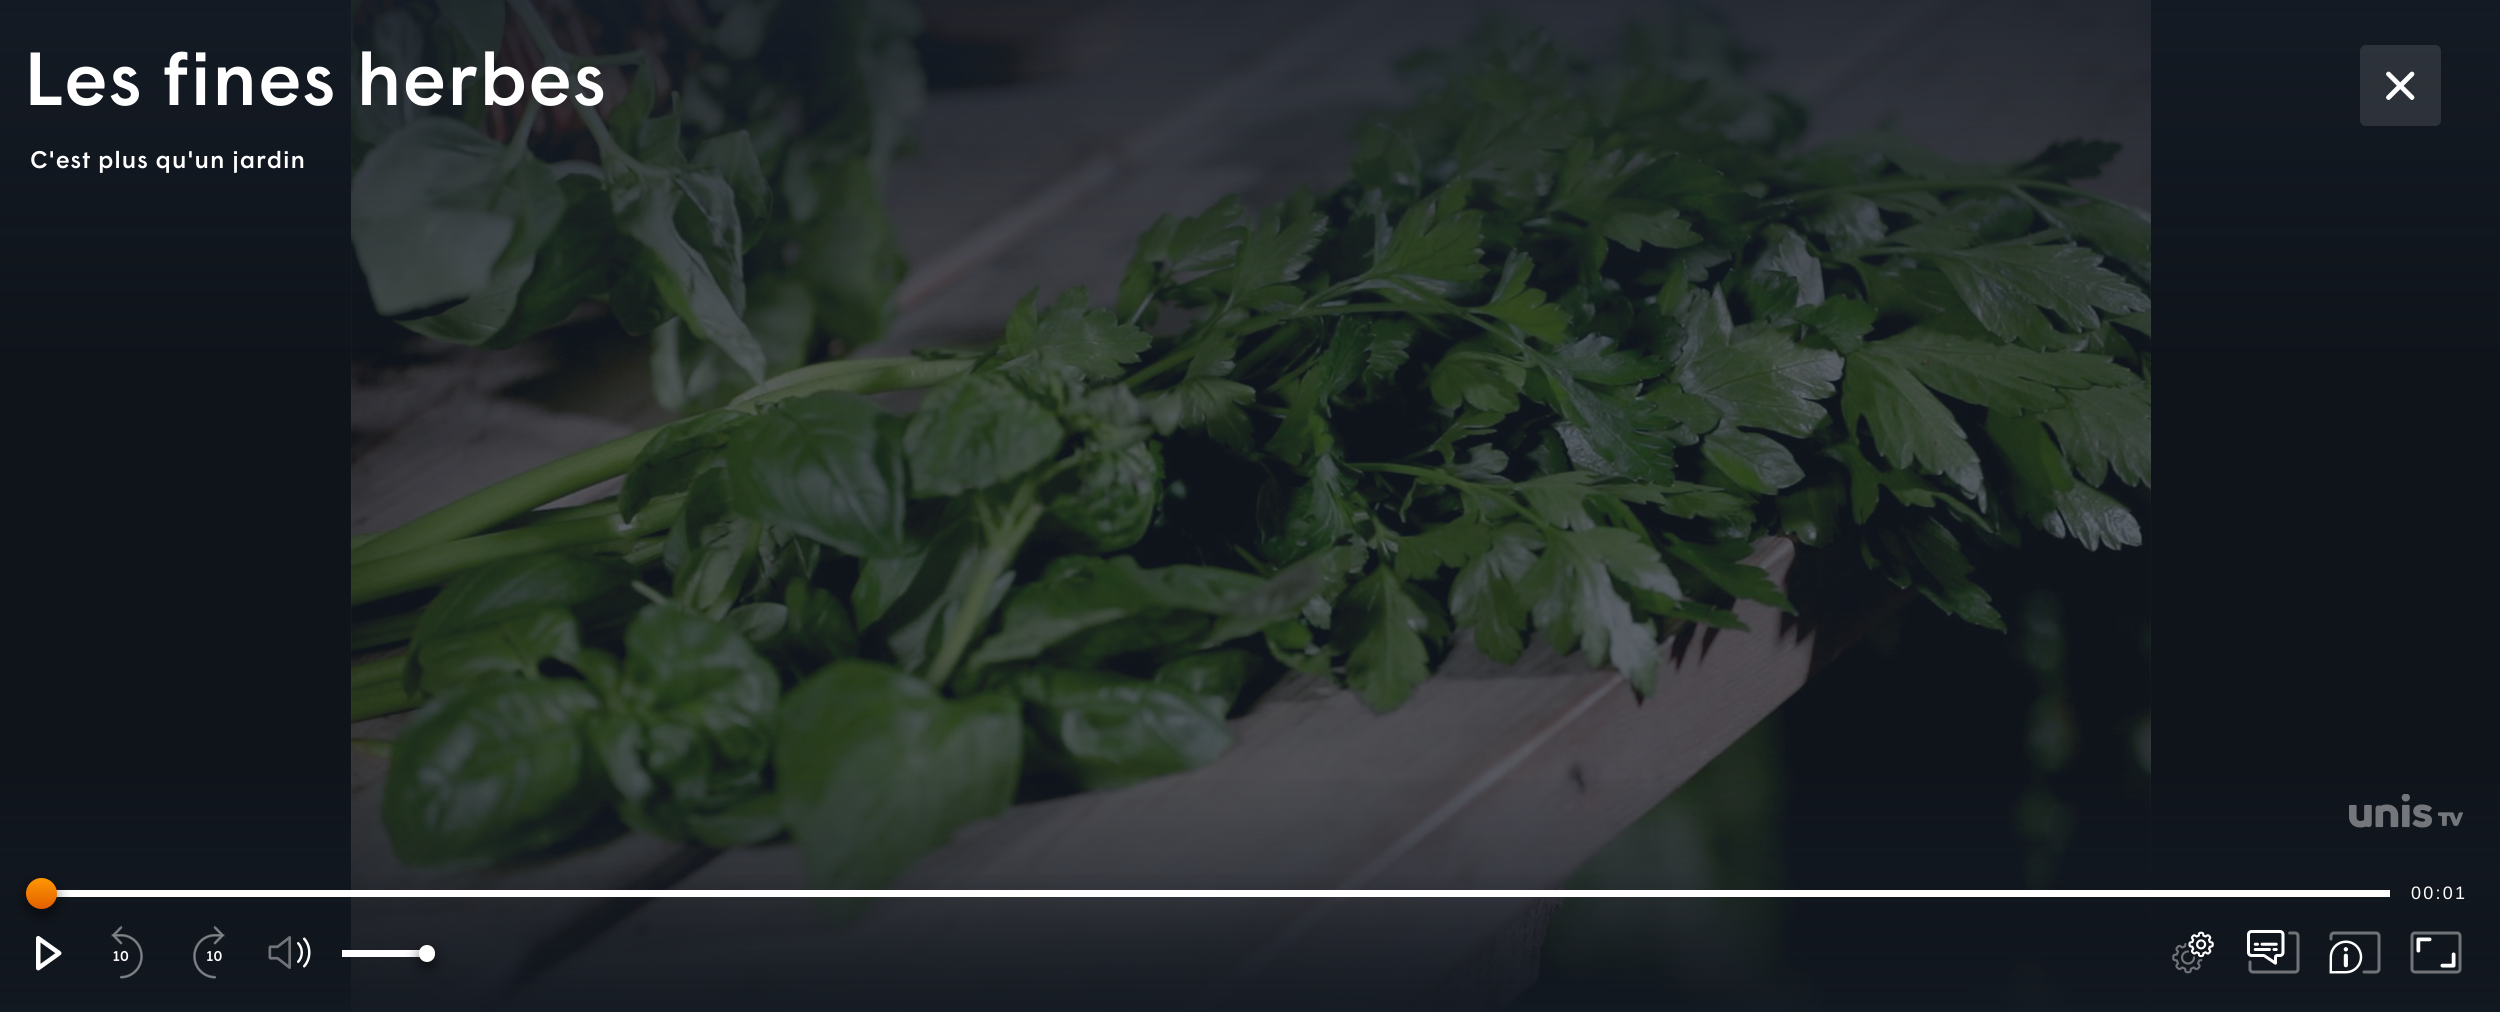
#include <cairo.h>
#include <math.h>
#include <stddef.h>


static void ink(cairo_t *ctx, unsigned color) {
    cairo_set_source_rgb(ctx, (color >> 16) / 255.0, (color >> 8 & 255) / 255.0, (color & 255) / 255.0);
}

static void write_spaced(cairo_t *ctx, double x, double y, const char *s, double letter, double word) {
    cairo_move_to(ctx, x, y);
    while (*s) {
        char ch[5] = {0};
        int n = 0;
        do ch[n++] = *s++; while ((*s & 0xC0) == 0x80);
        cairo_show_text(ctx, ch);
        cairo_rel_move_to(ctx, letter + word * (*ch == ' '), 0);
    }
}

static void round_path(cairo_t *ctx, double x, double y, double w, double h, double r) {
    cairo_new_sub_path(ctx);
    cairo_arc(ctx, x + w - r, y + h - r, r, 0, M_PI / 2);
    cairo_arc(ctx, x + r, y + h - r, r, M_PI / 2, M_PI);
    cairo_arc(ctx, x + r, y + r, r, M_PI, 1.5 * M_PI);
    cairo_arc(ctx, x + w - r, y + r, r, 1.5 * M_PI, 2 * M_PI);
    cairo_close_path(ctx);
}

static void blur_box(cairo_t *ctx, double x, double y, double w, double h, double r, double blur, double alpha) {
    cairo_push_group_with_content(ctx, CAIRO_CONTENT_ALPHA);
    cairo_set_operator(ctx, CAIRO_OPERATOR_SOURCE);
    for (int i = 15; i >= -15 && fmin(w, h) + blur * i / 3 > 0; i -= 2) {
        double e = blur * i / 6;
        cairo_set_source_rgba(ctx, 0, 0, 0, alpha * erfc((i - 1) / 8.5) / 2);
        round_path(ctx, x - e, y - e, w + 2 * e, h + 2 * e, fmax(0, fmin(r + e + blur * .6, fmin(w, h) / 2 + e)));
        cairo_fill(ctx);
    }
    cairo_pattern_t *soft = cairo_pop_group(ctx);
    cairo_mask(ctx, soft);
    cairo_pattern_destroy(soft);
}

static void paste(cairo_t *ctx, const char *path, double x, double y, double w, double h) {
    cairo_surface_t *image = cairo_image_surface_create_from_png(path);
    cairo_save(ctx);
    cairo_set_source_surface(ctx, image, x, y);
    cairo_rectangle(ctx, x, y, w, h);
    cairo_fill(ctx);
    cairo_restore(ctx);
    cairo_surface_destroy(image);
}

int main(void) {
    cairo_surface_t *surface = cairo_image_surface_create(CAIRO_FORMAT_RGB24, 2500, 1012);
    cairo_t *ctx = cairo_create(surface);
    cairo_font_options_t *options = cairo_font_options_create();
    cairo_font_options_set_hint_metrics(options, CAIRO_HINT_METRICS_OFF);
    cairo_font_options_set_hint_style(options, CAIRO_HINT_STYLE_NONE);
    cairo_set_font_options(ctx, options);
    cairo_set_miter_limit(ctx, 4);
    cairo_pattern_t *gradient;
    ink(ctx, 0x0F141B);
    cairo_paint(ctx);
    paste(ctx, "media/2.png", 351, 0, 1800, 1012);
    gradient = cairo_pattern_create_linear(1250, 0, 1250, 375);
    cairo_pattern_add_color_stop_rgba(gradient, 0, 0.086, 0.114, 0.153, 0.7);
    cairo_pattern_add_color_stop_rgba(gradient, 1, 0.086, 0.114, 0.153, 0);
    cairo_set_source(ctx, gradient);
    cairo_pattern_destroy(gradient);
    cairo_rectangle(ctx, 0, 0, 2500, 355);
    cairo_fill(ctx);
    cairo_select_font_face(ctx, "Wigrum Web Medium", CAIRO_FONT_SLANT_NORMAL, CAIRO_FONT_WEIGHT_NORMAL);
    cairo_set_font_size(ctx, 75);
    ink(ctx, 0xFFFFFF);
    write_spaced(ctx, 24, 105, "Les fines herbes", 1, 0);
    cairo_set_font_size(ctx, 24);
    write_spaced(ctx, 30, 168, "C'est plus qu'un jardin", 0.9, 0);
    cairo_set_source_rgba(ctx, 1, 1, 1, 0.11);
    round_path(ctx, 2360, 45, 81, 81, 6);
    cairo_fill(ctx);
    paste(ctx, "media/1.png", 2386, 71, 29, 29);
    gradient = cairo_pattern_create_linear(1250, 868, 1250, 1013);
    cairo_pattern_add_color_stop_rgba(gradient, 0, 0, 0, 0, 0);
    cairo_pattern_add_color_stop_rgba(gradient, 1, 0, 0, 0, 0.7);
    cairo_set_source(ctx, gradient);
    cairo_pattern_destroy(gradient);
    cairo_rectangle(ctx, 0, 874, 2500, 138);
    cairo_fill(ctx);
    gradient = cairo_pattern_create_linear(1250, 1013, 1250, 768);
    cairo_pattern_add_color_stop_rgba(gradient, 0, 0.086, 0.114, 0.153, 0.8);
    cairo_pattern_add_color_stop_rgba(gradient, 1, 0.086, 0.114, 0.153, 0);
    cairo_set_source(ctx, gradient);
    cairo_pattern_destroy(gradient);
    cairo_rectangle(ctx, 0, 779, 2500, 233);
    cairo_fill(ctx);
    paste(ctx, "media/3.png", 2349, 794, 114, 34);
    ink(ctx, 0xFFFFFF);
    cairo_rectangle(ctx, 56, 890, 2334, 7);
    cairo_fill(ctx);
    paste(ctx, "media/4.png", 36, 936, 26, 35);
    ink(ctx, 0x000000);
    blur_box(ctx, 26, 884, 31, 31, 15.5, 7, 0.5);
    gradient = cairo_pattern_create_linear(41, 878, 41, 909);
    cairo_pattern_add_color_stop_rgba(gradient, 0, 1, 0.592, 0, 1);
    cairo_pattern_add_color_stop_rgba(gradient, 1, 0.886, 0.373, 0, 1);
    cairo_set_source(ctx, gradient);
    cairo_pattern_destroy(gradient);
    cairo_arc(ctx, 41.5, 893.5, 15.5, 0, 2 * M_PI);
    cairo_fill(ctx);
    cairo_select_font_face(ctx, "Liberation Sans", CAIRO_FONT_SLANT_NORMAL, CAIRO_FONT_WEIGHT_NORMAL);
    cairo_set_font_size(ctx, 18);
    ink(ctx, 0xFFFFFF);
    write_spaced(ctx, 2411, 899, "00:01", 2.25, 0);
    paste(ctx, "media/5.png", 111, 926, 32, 53);
    paste(ctx, "media/6.png", 193, 926, 32, 53);
    paste(ctx, "media/7.png", 268, 936, 43, 33);
    cairo_rectangle(ctx, 342, 950, 84, 7);
    cairo_fill(ctx);
    ink(ctx, 0x000000);
    blur_box(ctx, 419, 951, 16, 17, 8, 7, 0.5);
    ink(ctx, 0xFFFFFF);
    round_path(ctx, 419, 945, 16, 17, 8);
    cairo_fill(ctx);
    paste(ctx, "media/8.png", 2172, 931, 42, 43);
    paste(ctx, "media/9.png", 2247, 930, 53, 44);
    paste(ctx, "media/10.png", 2329, 931, 52, 43);
    paste(ctx, "media/11.png", 2410, 931, 52, 43);
    cairo_surface_write_to_png(surface, "image.png");
    cairo_font_options_destroy(options);
    cairo_destroy(ctx);
    cairo_surface_destroy(surface);
    return 0;
}
